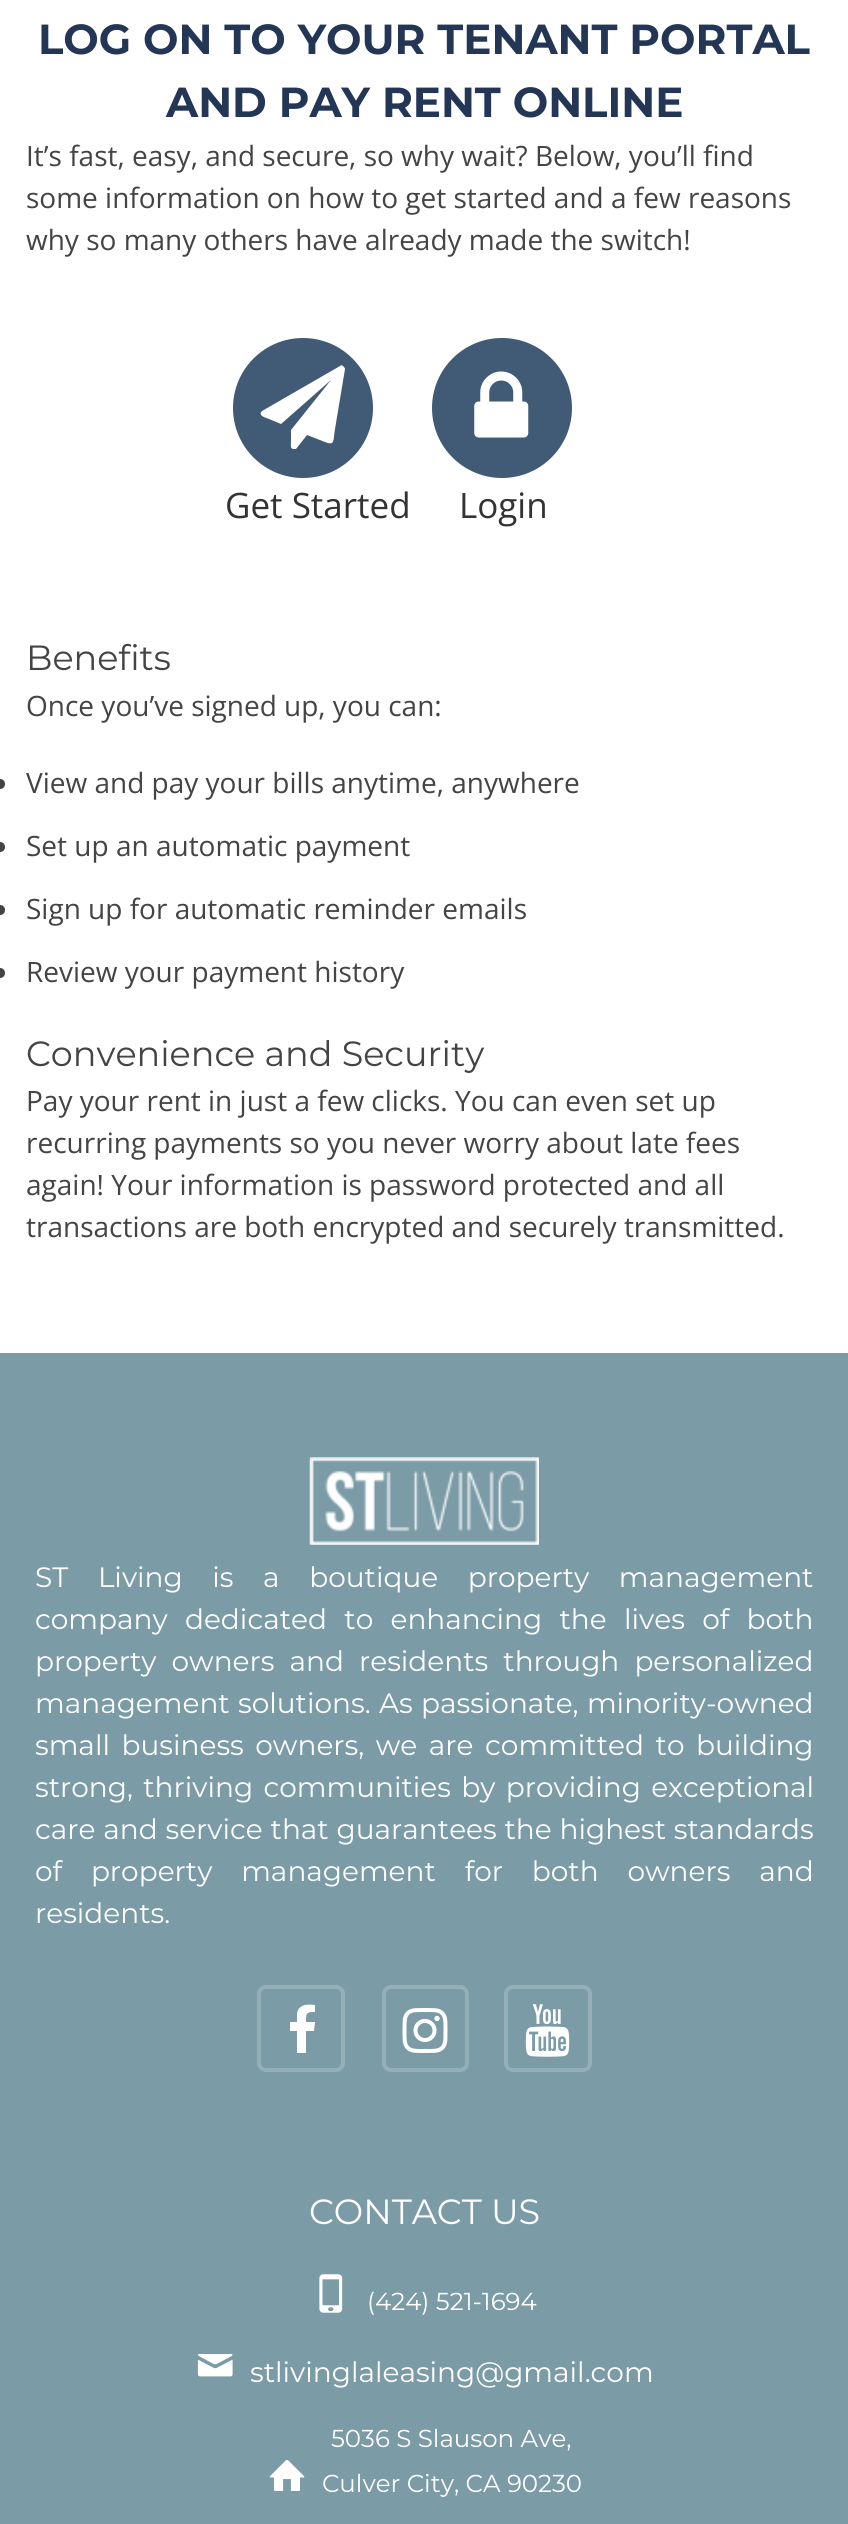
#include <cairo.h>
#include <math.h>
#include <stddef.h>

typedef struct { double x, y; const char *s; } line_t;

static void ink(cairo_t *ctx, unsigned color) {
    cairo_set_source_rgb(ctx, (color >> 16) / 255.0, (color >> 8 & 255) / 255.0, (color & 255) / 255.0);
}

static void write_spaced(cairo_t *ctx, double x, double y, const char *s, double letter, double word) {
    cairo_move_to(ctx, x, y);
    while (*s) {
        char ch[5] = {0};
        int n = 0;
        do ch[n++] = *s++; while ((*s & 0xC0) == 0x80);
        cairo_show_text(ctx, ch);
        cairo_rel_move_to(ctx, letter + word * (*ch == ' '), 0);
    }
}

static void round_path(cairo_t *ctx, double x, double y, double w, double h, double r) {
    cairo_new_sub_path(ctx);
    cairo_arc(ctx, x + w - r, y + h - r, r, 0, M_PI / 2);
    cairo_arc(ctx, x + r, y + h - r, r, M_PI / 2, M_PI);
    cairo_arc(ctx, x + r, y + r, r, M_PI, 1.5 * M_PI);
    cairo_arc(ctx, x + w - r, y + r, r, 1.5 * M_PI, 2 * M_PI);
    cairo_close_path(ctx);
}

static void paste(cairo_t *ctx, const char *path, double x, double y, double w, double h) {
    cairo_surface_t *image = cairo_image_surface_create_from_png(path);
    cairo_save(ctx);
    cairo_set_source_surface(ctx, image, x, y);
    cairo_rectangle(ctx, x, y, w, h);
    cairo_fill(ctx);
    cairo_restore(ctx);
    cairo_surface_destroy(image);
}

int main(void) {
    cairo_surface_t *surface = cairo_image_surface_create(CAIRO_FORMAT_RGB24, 848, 2524);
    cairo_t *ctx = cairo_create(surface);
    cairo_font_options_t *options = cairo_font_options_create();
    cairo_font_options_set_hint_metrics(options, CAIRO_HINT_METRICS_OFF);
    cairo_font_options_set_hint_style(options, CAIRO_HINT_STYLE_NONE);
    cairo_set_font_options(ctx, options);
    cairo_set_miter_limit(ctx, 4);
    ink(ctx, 0xFFFFFF);
    cairo_paint(ctx);
    cairo_select_font_face(ctx, "Montserrat", CAIRO_FONT_SLANT_NORMAL, CAIRO_FONT_WEIGHT_BOLD);
    cairo_set_font_size(ctx, 42);
    ink(ctx, 0x233656);
    cairo_move_to(ctx, 38, 54);
    cairo_show_text(ctx, "LOG ON TO YOUR TENANT PORTAL");
    cairo_move_to(ctx, 166, 117);
    cairo_show_text(ctx, "AND PAY RENT ONLINE");
    cairo_select_font_face(ctx, "Open Sans", CAIRO_FONT_SLANT_NORMAL, CAIRO_FONT_WEIGHT_NORMAL);
    cairo_set_font_size(ctx, 28);
    ink(ctx, 0x444444);
    {
        static const line_t items[] = {
            {26, 166, "It’s fast, easy, and secure, so why wait? Below, you’ll find"},
            {26, 208, "some information on how to get started and a few reasons"},
            {26, 250, "why so many others have already made the switch!"},
        };
        for (size_t i = 0; i < sizeof items / sizeof *items; i++) {
            cairo_move_to(ctx, items[i].x, items[i].y);
            cairo_show_text(ctx, items[i].s);
        }
    }
    ink(ctx, 0x415B76);
    cairo_new_path(ctx);
    cairo_arc(ctx, 303, 408, 73.5, 0, 2 * M_PI);
    cairo_fill_preserve(ctx);
    ink(ctx, 0xFFFFFF);
    cairo_set_line_width(ctx, 7);
    cairo_stroke(ctx);
    cairo_new_path(ctx);
    cairo_move_to(ctx, 343, 366);
    cairo_curve_to(ctx, 344, 367, 345, 368, 345, 369);
    cairo_line_to(ctx, 335, 429);
    cairo_curve_to(ctx, 333, 441, 335, 446, 325, 442);
    cairo_line_to(ctx, 307, 435);
    cairo_line_to(ctx, 296, 449);
    cairo_line_to(ctx, 293, 449);
    cairo_curve_to(ctx, 290, 449, 291, 443, 291, 441);
    cairo_line_to(ctx, 291, 430);
    cairo_line_to(ctx, 331, 380);
    cairo_line_to(ctx, 281, 424);
    cairo_line_to(ctx, 269, 419);
    cairo_curve_to(ctx, 267, 418, 257, 416, 262, 411);
    cairo_line_to(ctx, 340, 366);
    cairo_curve_to(ctx, 341, 365, 342, 365, 343, 366);
    cairo_close_path(ctx);
    cairo_fill(ctx);
    cairo_set_font_size(ctx, 35);
    ink(ctx, 0x333333);
    cairo_move_to(ctx, 225, 518);
    cairo_show_text(ctx, "Get Started");
    ink(ctx, 0x415B76);
    cairo_new_path(ctx);
    cairo_arc(ctx, 502, 408, 73.5, 0, 2 * M_PI);
    cairo_fill_preserve(ctx);
    ink(ctx, 0xFFFFFF);
    cairo_stroke(ctx);
    paste(ctx, "media/1.png", 474, 371, 55, 67);
    ink(ctx, 0x333333);
    cairo_move_to(ctx, 459, 518);
    cairo_show_text(ctx, "Login");
    cairo_select_font_face(ctx, "Montserrat", CAIRO_FONT_SLANT_NORMAL, CAIRO_FONT_WEIGHT_NORMAL);
    ink(ctx, 0x444444);
    cairo_move_to(ctx, 26, 670);
    cairo_show_text(ctx, "Benefits");
    cairo_select_font_face(ctx, "Open Sans", CAIRO_FONT_SLANT_NORMAL, CAIRO_FONT_WEIGHT_NORMAL);
    cairo_set_font_size(ctx, 28);
    cairo_move_to(ctx, 26, 716);
    cairo_show_text(ctx, "Once you’ve signed up, you can:");
    cairo_new_path(ctx);
    cairo_arc(ctx, 0, 784, 5, 0, 2 * M_PI);
    cairo_fill(ctx);
    cairo_move_to(ctx, 26, 793);
    cairo_show_text(ctx, "View and pay your bills anytime, anywhere");
    cairo_new_path(ctx);
    cairo_arc(ctx, 0, 847, 5, 0, 2 * M_PI);
    cairo_fill(ctx);
    cairo_move_to(ctx, 26, 856);
    cairo_show_text(ctx, "Set up an automatic payment");
    cairo_new_path(ctx);
    cairo_arc(ctx, 0, 910, 5, 0, 2 * M_PI);
    cairo_fill(ctx);
    cairo_move_to(ctx, 26, 919);
    cairo_show_text(ctx, "Sign up for automatic reminder emails");
    cairo_new_path(ctx);
    cairo_arc(ctx, 0, 973, 5, 0, 2 * M_PI);
    cairo_fill(ctx);
    cairo_move_to(ctx, 26, 982);
    cairo_show_text(ctx, "Review your payment history");
    cairo_select_font_face(ctx, "Montserrat", CAIRO_FONT_SLANT_NORMAL, CAIRO_FONT_WEIGHT_NORMAL);
    cairo_set_font_size(ctx, 35);
    cairo_move_to(ctx, 26, 1066);
    cairo_show_text(ctx, "Convenience and Security");
    cairo_select_font_face(ctx, "Open Sans", CAIRO_FONT_SLANT_NORMAL, CAIRO_FONT_WEIGHT_NORMAL);
    cairo_set_font_size(ctx, 28);
    {
        static const line_t items[] = {
            {26, 1111, "Pay your rent in just a few clicks. You can even set up"},
            {26, 1153, "recurring payments so you never worry about late fees"},
            {26, 1195, "again! Your information is password protected and all"},
            {26, 1237, "transactions are both encrypted and securely transmitted."},
        };
        for (size_t i = 0; i < sizeof items / sizeof *items; i++) {
            cairo_move_to(ctx, items[i].x, items[i].y);
            cairo_show_text(ctx, items[i].s);
        }
    }
    ink(ctx, 0x7B9BA6);
    cairo_rectangle(ctx, 0, 1353, 848, 1171);
    cairo_fill(ctx);
    paste(ctx, "media/2.png", 309, 1457, 230, 88);
    cairo_select_font_face(ctx, "Montserrat", CAIRO_FONT_SLANT_NORMAL, CAIRO_FONT_WEIGHT_NORMAL);
    ink(ctx, 0xFFFFFF);
    write_spaced(ctx, 35, 1587, "ST Living is a boutique property management", 0, 22.25);
    write_spaced(ctx, 35, 1629, "company dedicated to enhancing the lives of both", 0, 10);
    write_spaced(ctx, 35, 1671, "property owners and residents through personalized", 0, 7.75);
    write_spaced(ctx, 35, 1713, "management solutions. As passionate, minority-owned", 0, 1);
    write_spaced(ctx, 35, 1755, "small business owners, we are committed to building", 0, 4.25);
    write_spaced(ctx, 35, 1797, "strong, thriving communities by providing exceptional", 0, 3);
    write_spaced(ctx, 35, 1839, "care and service that guarantees the highest standards", 0, 0.5);
    write_spaced(ctx, 35, 1881, "of property management for both owners and", 0, 21.5);
    cairo_move_to(ctx, 35, 1923);
    cairo_show_text(ctx, "residents.");
    round_path(ctx, 259, 1987, 84, 83, 7);
    ink(ctx, 0x95AFB8);
    cairo_set_line_width(ctx, 4);
    cairo_stroke(ctx);
    ink(ctx, 0xFFFFFF);
    cairo_new_path(ctx);
    cairo_move_to(ctx, 315, 2005);
    cairo_line_to(ctx, 315, 2012);
    cairo_curve_to(ctx, 306, 2012, 306, 2013, 306, 2022);
    cairo_line_to(ctx, 315, 2022);
    cairo_line_to(ctx, 314, 2031);
    cairo_line_to(ctx, 306, 2031);
    cairo_line_to(ctx, 306, 2053);
    cairo_line_to(ctx, 297, 2053);
    cairo_line_to(ctx, 297, 2031);
    cairo_line_to(ctx, 290, 2031);
    cairo_line_to(ctx, 290, 2022);
    cairo_line_to(ctx, 297, 2022);
    cairo_line_to(ctx, 297, 2013);
    cairo_curve_to(ctx, 299, 2004, 308, 2004, 315, 2005);
    cairo_close_path(ctx);
    cairo_fill(ctx);
    round_path(ctx, 384, 1987, 83, 83, 7);
    ink(ctx, 0x95AFB8);
    cairo_stroke(ctx);
    paste(ctx, "media/3.png", 402, 2008, 46, 45);
    round_path(ctx, 506, 1987, 84, 83, 7);
    cairo_stroke(ctx);
    paste(ctx, "media/4.png", 525, 2004, 45, 53);
    cairo_set_font_size(ctx, 35);
    ink(ctx, 0xFFFFFF);
    cairo_move_to(ctx, 309, 2224);
    cairo_show_text(ctx, "CONTACT US");
    paste(ctx, "media/5.png", 319, 2274, 24, 39);
    cairo_set_font_size(ctx, 24.5);
    cairo_move_to(ctx, 367, 2310);
    cairo_show_text(ctx, "(424) 521-1694");
    paste(ctx, "media/6.png", 197, 2354, 36, 23);
    cairo_set_font_size(ctx, 28);
    cairo_move_to(ctx, 250, 2382);
    cairo_show_text(ctx, "stlivinglaleasing@gmail.com");
    paste(ctx, "media/7.png", 269, 2460, 36, 31);
    cairo_set_font_size(ctx, 24.5);
    cairo_move_to(ctx, 331, 2447);
    cairo_show_text(ctx, "5036 S Slauson Ave,");
    cairo_move_to(ctx, 322, 2492);
    cairo_show_text(ctx, "Culver City, CA 90230");
    cairo_surface_write_to_png(surface, "image.png");
    cairo_font_options_destroy(options);
    cairo_destroy(ctx);
    cairo_surface_destroy(surface);
    return 0;
}
